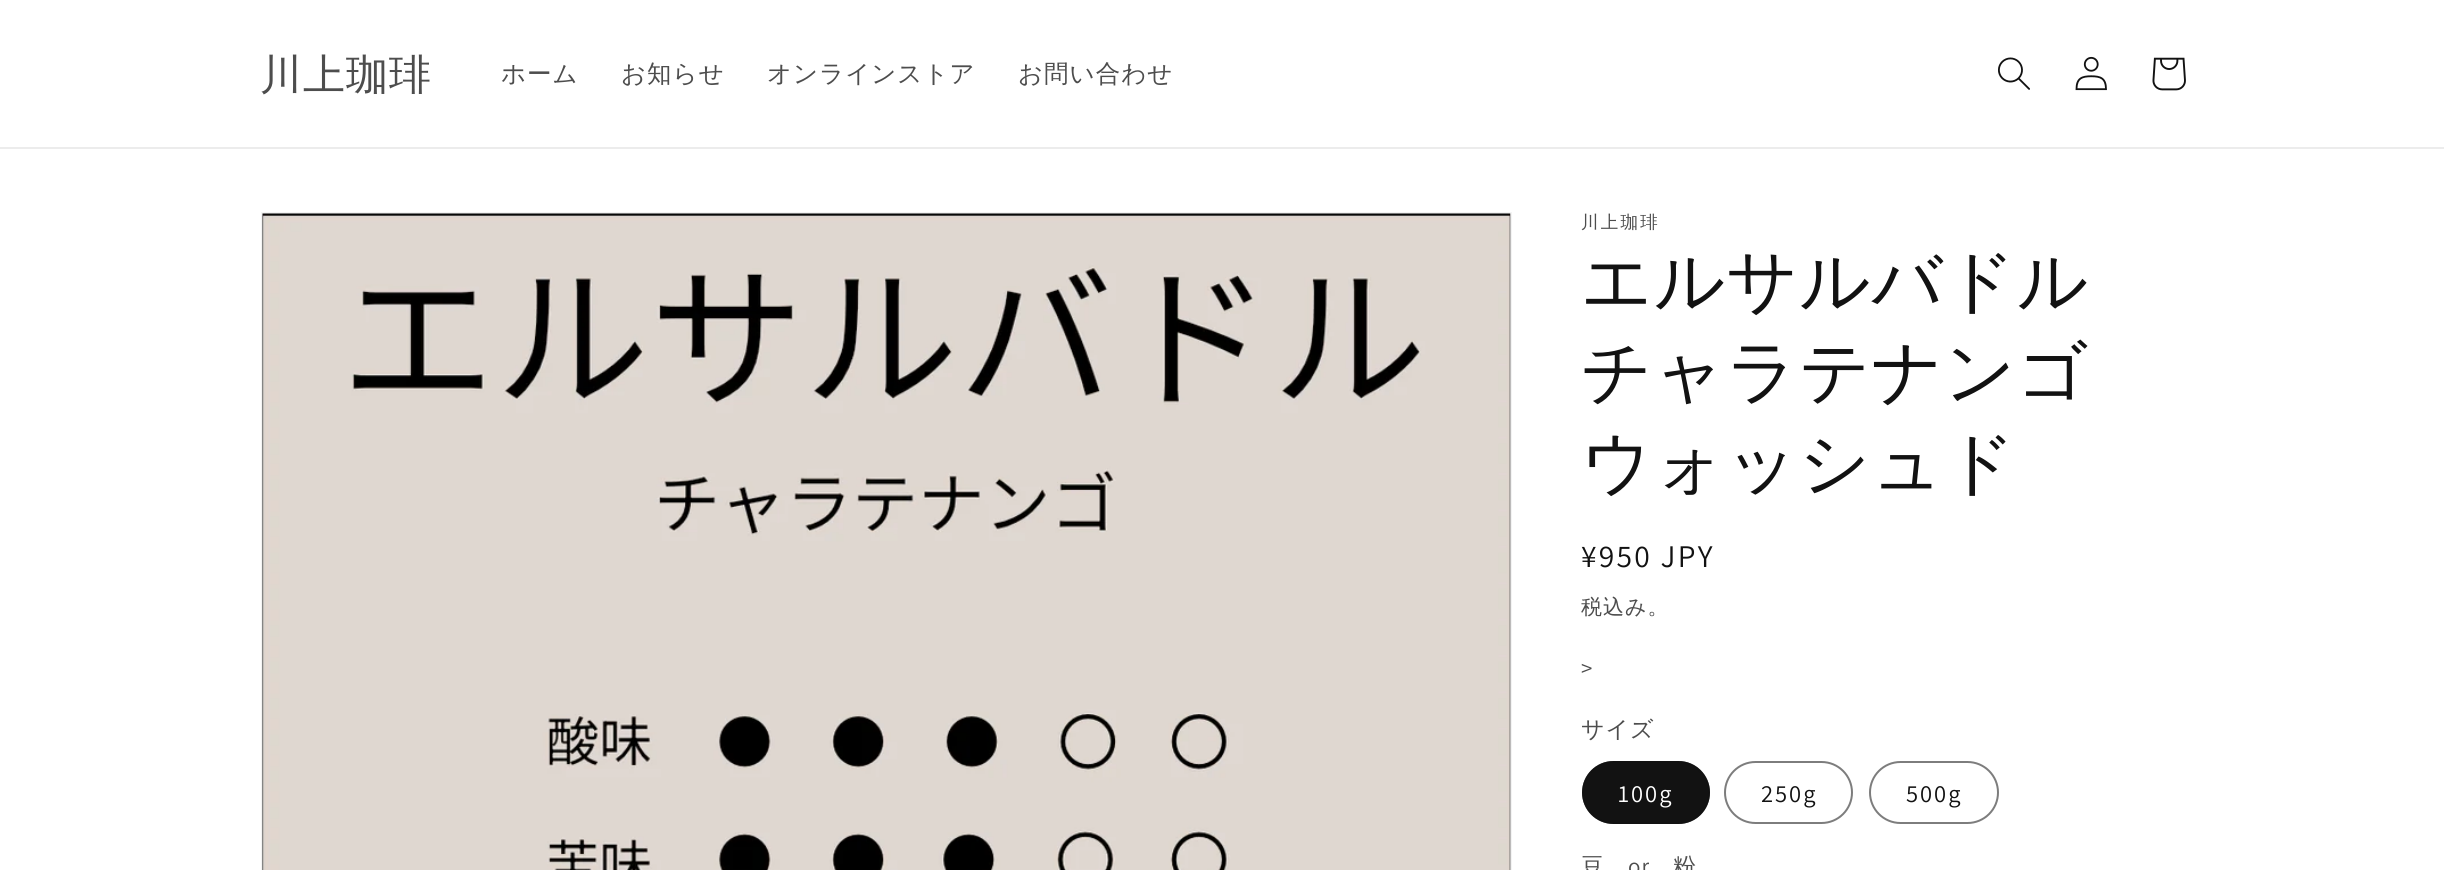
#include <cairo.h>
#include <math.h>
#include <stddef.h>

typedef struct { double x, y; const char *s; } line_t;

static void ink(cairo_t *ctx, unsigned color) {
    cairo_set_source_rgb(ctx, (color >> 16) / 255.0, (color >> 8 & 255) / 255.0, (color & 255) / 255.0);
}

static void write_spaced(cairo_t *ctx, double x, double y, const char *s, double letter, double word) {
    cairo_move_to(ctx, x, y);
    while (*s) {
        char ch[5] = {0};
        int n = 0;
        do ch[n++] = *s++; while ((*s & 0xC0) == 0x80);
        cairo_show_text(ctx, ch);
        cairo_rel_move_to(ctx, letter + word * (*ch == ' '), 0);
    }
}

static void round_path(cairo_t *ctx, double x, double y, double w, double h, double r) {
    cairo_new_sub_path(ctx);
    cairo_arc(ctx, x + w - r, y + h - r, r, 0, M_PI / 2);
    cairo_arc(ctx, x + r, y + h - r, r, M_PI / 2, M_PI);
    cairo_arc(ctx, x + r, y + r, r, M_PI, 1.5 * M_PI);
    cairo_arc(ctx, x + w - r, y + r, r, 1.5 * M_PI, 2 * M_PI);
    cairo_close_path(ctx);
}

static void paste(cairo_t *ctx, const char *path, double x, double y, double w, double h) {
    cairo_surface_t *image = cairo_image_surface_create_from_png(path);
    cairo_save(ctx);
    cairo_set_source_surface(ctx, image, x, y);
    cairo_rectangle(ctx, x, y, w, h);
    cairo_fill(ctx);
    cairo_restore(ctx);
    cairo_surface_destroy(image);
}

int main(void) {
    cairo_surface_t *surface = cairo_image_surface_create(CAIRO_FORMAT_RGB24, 2444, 870);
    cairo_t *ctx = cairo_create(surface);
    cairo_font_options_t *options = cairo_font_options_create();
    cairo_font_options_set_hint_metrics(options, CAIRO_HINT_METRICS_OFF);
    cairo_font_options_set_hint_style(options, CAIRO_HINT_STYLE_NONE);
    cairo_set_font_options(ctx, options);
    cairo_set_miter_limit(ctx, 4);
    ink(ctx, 0xFFFFFF);
    cairo_paint(ctx);
    ink(ctx, 0xECECEC);
    cairo_rectangle(ctx, 0, 147, 2444, 2);
    cairo_fill(ctx);
    cairo_select_font_face(ctx, "WenQuanYi Zen Hei Medium", CAIRO_FONT_SLANT_NORMAL, CAIRO_FONT_WEIGHT_NORMAL);
    cairo_set_font_size(ctx, 42);
    ink(ctx, 0x4D4D4D);
    write_spaced(ctx, 260, 89, "川上珈琲", 1, 0);
    cairo_set_font_size(ctx, 24.5);
    {
        static const line_t items[] = {
            {501, 82, "ホーム"},
            {621, 82, "お知らせ"},
            {767, 82, "オンラインストア"},
            {1018, 82, "お問い合わせ"},
        };
        for (size_t i = 0; i < sizeof items / sizeof *items; i++) {
            write_spaced(ctx, items[i].x, items[i].y, items[i].s, 1, 0);
        }
    }
    paste(ctx, "media/1.png", 1998, 57, 32, 33);
    paste(ctx, "media/2.png", 2075, 56, 32, 35);
    paste(ctx, "media/3.png", 2152, 57, 34, 34);
    cairo_rectangle(ctx, 262, 213, 1249, 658);
    ink(ctx, 0xF3F3F3);
    cairo_stroke(ctx);
    paste(ctx, "media/4.png", 262, 213, 1249, 657);
    cairo_set_font_size(ctx, 17.5);
    ink(ctx, 0x4D4D4D);
    write_spaced(ctx, 1581, 228, "川上珈琲", 2.25, 0);
    cairo_set_font_size(ctx, 70);
    ink(ctx, 0x121212);
    {
        static const line_t items[] = {
            {1581, 305, "エルサルバドル"},
            {1581, 396, "チャラテナンゴ"},
            {1581, 487, "ウォッシュド"},
        };
        for (size_t i = 0; i < sizeof items / sizeof *items; i++) {
            write_spaced(ctx, items[i].x, items[i].y, items[i].s, 1, 0);
        }
    }
    cairo_select_font_face(ctx, "Assistant", CAIRO_FONT_SLANT_NORMAL, CAIRO_FONT_WEIGHT_NORMAL);
    cairo_set_font_size(ctx, 31.5);
    write_spaced(ctx, 1581, 567, "¥950 JPY", 2.25, 0);
    cairo_select_font_face(ctx, "WenQuanYi Zen Hei Medium", CAIRO_FONT_SLANT_NORMAL, CAIRO_FONT_WEIGHT_NORMAL);
    cairo_set_font_size(ctx, 21);
    ink(ctx, 0x4D4D4D);
    write_spaced(ctx, 1581, 614, "税込み。", 1, 0);
    cairo_select_font_face(ctx, "Assistant", CAIRO_FONT_SLANT_NORMAL, CAIRO_FONT_WEIGHT_NORMAL);
    cairo_set_font_size(ctx, 23);
    write_spaced(ctx, 1581, 676, ">", 1, 0);
    cairo_select_font_face(ctx, "WenQuanYi Zen Hei Medium", CAIRO_FONT_SLANT_NORMAL, CAIRO_FONT_WEIGHT_NORMAL);
    write_spaced(ctx, 1581, 737, "サイズ", 1, 0);
    ink(ctx, 0x121212);
    round_path(ctx, 1582, 761, 128, 63, 31.5);
    cairo_fill(ctx);
    round_path(ctx, 1583, 762, 126, 61, 30.5);
    cairo_set_source_rgba(ctx, 0.071, 0.071, 0.071, 0.55);
    cairo_stroke(ctx);
    cairo_select_font_face(ctx, "Assistant", CAIRO_FONT_SLANT_NORMAL, CAIRO_FONT_WEIGHT_NORMAL);
    cairo_set_font_size(ctx, 24.5);
    ink(ctx, 0xFFFFFF);
    write_spaced(ctx, 1618, 802, "100g", 2, 0);
    round_path(ctx, 1725, 762, 127, 61, 30.5);
    ink(ctx, 0x7D7D7D);
    cairo_stroke(ctx);
    ink(ctx, 0x121212);
    write_spaced(ctx, 1761, 802, "250g", 2, 0);
    round_path(ctx, 1870, 762, 128, 61, 30.5);
    ink(ctx, 0x7D7D7D);
    cairo_stroke(ctx);
    ink(ctx, 0x121212);
    write_spaced(ctx, 1906, 802, "500g", 2, 0);
    cairo_select_font_face(ctx, "WenQuanYi Zen Hei Medium", CAIRO_FONT_SLANT_NORMAL, CAIRO_FONT_WEIGHT_NORMAL);
    cairo_set_font_size(ctx, 23);
    ink(ctx, 0x4D4D4D);
    write_spaced(ctx, 1581, 874, "豆", 1, 0);
    cairo_select_font_face(ctx, "Assistant", CAIRO_FONT_SLANT_NORMAL, CAIRO_FONT_WEIGHT_NORMAL);
    write_spaced(ctx, 1628, 874, "or", 1, 0);
    cairo_select_font_face(ctx, "WenQuanYi Zen Hei Medium", CAIRO_FONT_SLANT_NORMAL, CAIRO_FONT_WEIGHT_NORMAL);
    write_spaced(ctx, 1673, 874, "粉", 1, 0);
    cairo_surface_write_to_png(surface, "image.png");
    cairo_font_options_destroy(options);
    cairo_destroy(ctx);
    cairo_surface_destroy(surface);
    return 0;
}
